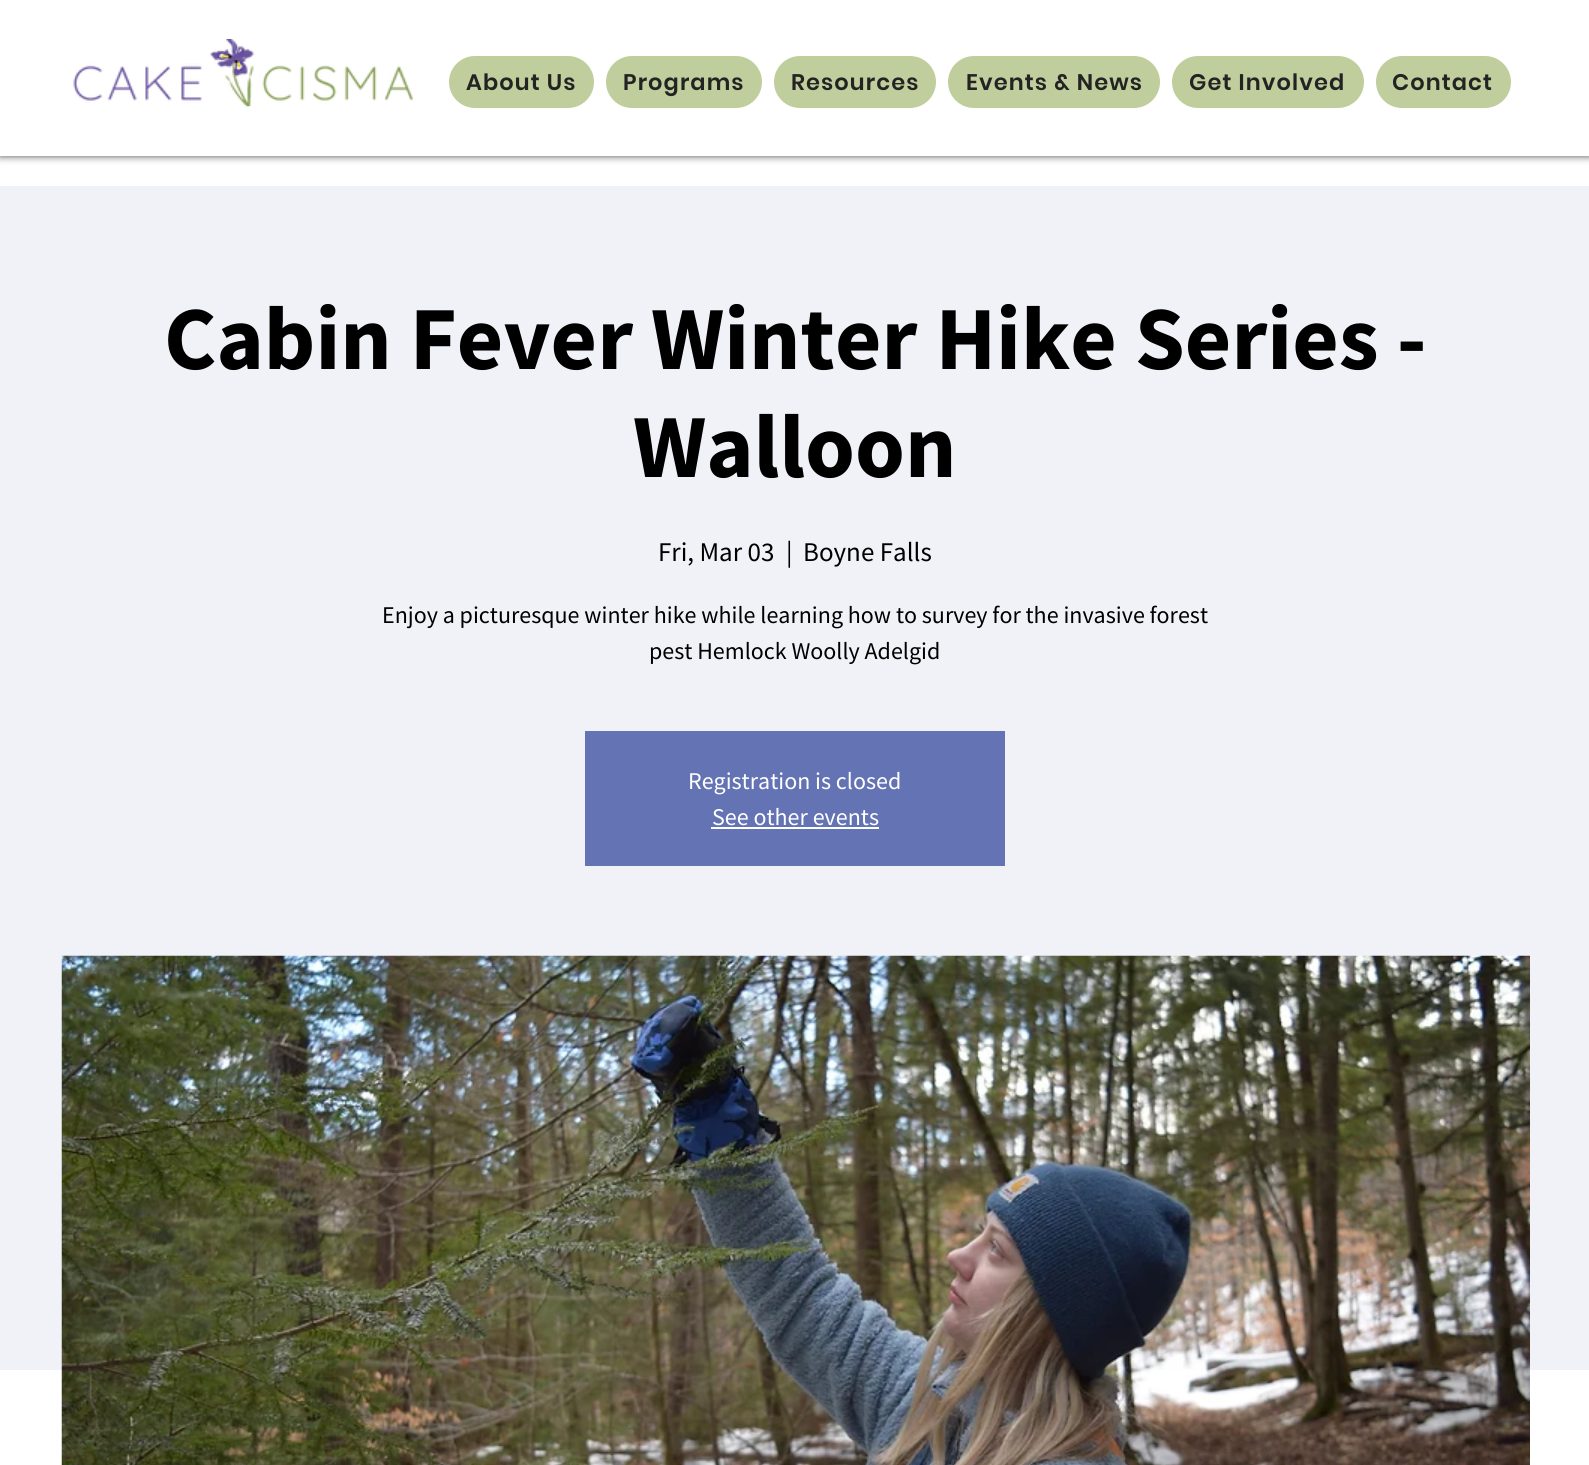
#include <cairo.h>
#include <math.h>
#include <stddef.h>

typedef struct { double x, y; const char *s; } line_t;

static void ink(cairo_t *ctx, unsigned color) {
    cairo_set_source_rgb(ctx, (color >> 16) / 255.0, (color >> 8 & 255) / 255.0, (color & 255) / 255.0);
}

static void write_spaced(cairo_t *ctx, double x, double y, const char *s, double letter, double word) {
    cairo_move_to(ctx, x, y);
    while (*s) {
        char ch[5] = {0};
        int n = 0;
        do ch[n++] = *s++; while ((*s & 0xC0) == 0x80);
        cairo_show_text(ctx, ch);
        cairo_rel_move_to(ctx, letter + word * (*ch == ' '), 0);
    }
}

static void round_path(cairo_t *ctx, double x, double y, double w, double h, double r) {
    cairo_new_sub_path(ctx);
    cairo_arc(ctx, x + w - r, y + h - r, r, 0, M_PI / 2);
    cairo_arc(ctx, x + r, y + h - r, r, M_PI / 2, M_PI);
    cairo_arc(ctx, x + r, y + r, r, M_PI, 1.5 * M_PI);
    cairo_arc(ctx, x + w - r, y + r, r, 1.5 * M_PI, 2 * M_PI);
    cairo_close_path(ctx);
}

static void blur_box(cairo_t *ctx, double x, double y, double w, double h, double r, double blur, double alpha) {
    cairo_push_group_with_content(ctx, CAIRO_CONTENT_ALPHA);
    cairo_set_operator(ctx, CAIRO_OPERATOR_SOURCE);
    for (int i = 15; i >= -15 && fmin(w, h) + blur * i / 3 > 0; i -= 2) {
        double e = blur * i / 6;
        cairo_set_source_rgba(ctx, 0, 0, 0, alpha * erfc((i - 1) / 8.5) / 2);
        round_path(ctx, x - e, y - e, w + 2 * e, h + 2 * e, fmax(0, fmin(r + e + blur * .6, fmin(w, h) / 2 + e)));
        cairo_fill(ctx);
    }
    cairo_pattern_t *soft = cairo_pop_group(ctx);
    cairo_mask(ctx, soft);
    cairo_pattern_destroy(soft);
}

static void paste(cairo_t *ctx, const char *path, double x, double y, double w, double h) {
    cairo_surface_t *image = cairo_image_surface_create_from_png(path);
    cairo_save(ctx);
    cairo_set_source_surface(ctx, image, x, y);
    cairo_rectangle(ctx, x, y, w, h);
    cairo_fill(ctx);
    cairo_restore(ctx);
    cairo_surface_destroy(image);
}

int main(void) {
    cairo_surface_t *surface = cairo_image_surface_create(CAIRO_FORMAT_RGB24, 1589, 1465);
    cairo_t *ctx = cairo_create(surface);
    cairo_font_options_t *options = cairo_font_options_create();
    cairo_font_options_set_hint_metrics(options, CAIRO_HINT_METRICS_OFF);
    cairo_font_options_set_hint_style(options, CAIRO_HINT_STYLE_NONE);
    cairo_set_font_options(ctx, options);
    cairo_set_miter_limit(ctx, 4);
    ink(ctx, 0xFFFFFF);
    cairo_paint(ctx);
    ink(ctx, 0x000000);
    blur_box(ctx, 0, 0, 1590, 156, 0, 4, 0.7);
    ink(ctx, 0xFFFFFF);
    cairo_rectangle(ctx, 0, 0, 1589, 156);
    cairo_fill(ctx);
    paste(ctx, "media/1.png", 73, 39, 340, 68);
    ink(ctx, 0xBFCE9C);
    round_path(ctx, 449, 56, 145, 52, 26);
    cairo_fill(ctx);
    cairo_select_font_face(ctx, "Poppins SemiBold", CAIRO_FONT_SLANT_NORMAL, CAIRO_FONT_WEIGHT_NORMAL);
    cairo_set_font_size(ctx, 22.5);
    ink(ctx, 0x242323);
    write_spaced(ctx, 466, 90, "About Us", 1.1, 0);
    ink(ctx, 0xBFCE9C);
    round_path(ctx, 606, 56, 156, 52, 26);
    cairo_fill(ctx);
    ink(ctx, 0x242323);
    write_spaced(ctx, 623, 90, "Programs", 1.1, 0);
    ink(ctx, 0xBFCE9C);
    round_path(ctx, 774, 56, 162, 52, 26);
    cairo_fill(ctx);
    ink(ctx, 0x242323);
    write_spaced(ctx, 791, 90, "Resources", 1.1, 0);
    ink(ctx, 0xBFCE9C);
    round_path(ctx, 948, 56, 212, 52, 26);
    cairo_fill(ctx);
    ink(ctx, 0x242323);
    write_spaced(ctx, 966, 90, "Events & News", 1.1, 0);
    ink(ctx, 0xBFCE9C);
    round_path(ctx, 1172, 56, 192, 52, 26);
    cairo_fill(ctx);
    ink(ctx, 0x242323);
    write_spaced(ctx, 1189, 90, "Get Involved", 1.1, 0);
    ink(ctx, 0xBFCE9C);
    round_path(ctx, 1376, 56, 135, 52, 26);
    cairo_fill(ctx);
    ink(ctx, 0x242323);
    write_spaced(ctx, 1392, 90, "Contact", 1.1, 0);
    ink(ctx, 0xF0F2F8);
    cairo_rectangle(ctx, 0, 186, 1589, 1184);
    cairo_fill(ctx);
    cairo_select_font_face(ctx, "Source Sans Pro", CAIRO_FONT_SLANT_NORMAL, CAIRO_FONT_WEIGHT_BOLD);
    cairo_set_font_size(ctx, 90);
    ink(ctx, 0x000000);
    cairo_move_to(ctx, 164, 369);
    cairo_show_text(ctx, "Cabin Fever Winter Hike Series -");
    cairo_move_to(ctx, 633, 477);
    cairo_show_text(ctx, "Walloon");
    cairo_select_font_face(ctx, "Source Sans Pro", CAIRO_FONT_SLANT_NORMAL, CAIRO_FONT_WEIGHT_NORMAL);
    cairo_set_font_size(ctx, 27);
    {
        static const line_t items[] = {
            {658, 561, "Fri, Mar 03"},
            {786, 561, "|"},
            {803, 561, "Boyne Falls"},
        };
        for (size_t i = 0; i < sizeof items / sizeof *items; i++) {
            cairo_move_to(ctx, items[i].x, items[i].y);
            cairo_show_text(ctx, items[i].s);
        }
    }
    cairo_set_font_size(ctx, 24);
    cairo_move_to(ctx, 382, 623);
    cairo_show_text(ctx, "Enjoy a picturesque winter hike while learning how to survey for the invasive forest");
    cairo_move_to(ctx, 649, 659);
    cairo_show_text(ctx, "pest Hemlock Woolly Adelgid");
    ink(ctx, 0x6473B3);
    cairo_rectangle(ctx, 585, 731, 420, 135);
    cairo_fill(ctx);
    ink(ctx, 0xFFFFFF);
    cairo_move_to(ctx, 688, 789);
    cairo_show_text(ctx, "Registration is closed");
    cairo_move_to(ctx, 712, 825);
    cairo_show_text(ctx, "See other events");
    cairo_rectangle(ctx, 711, 827, 168, 2);
    cairo_fill(ctx);
    paste(ctx, "media/2.png", 61, 955, 1469, 510);
    cairo_surface_write_to_png(surface, "image.png");
    cairo_font_options_destroy(options);
    cairo_destroy(ctx);
    cairo_surface_destroy(surface);
    return 0;
}
